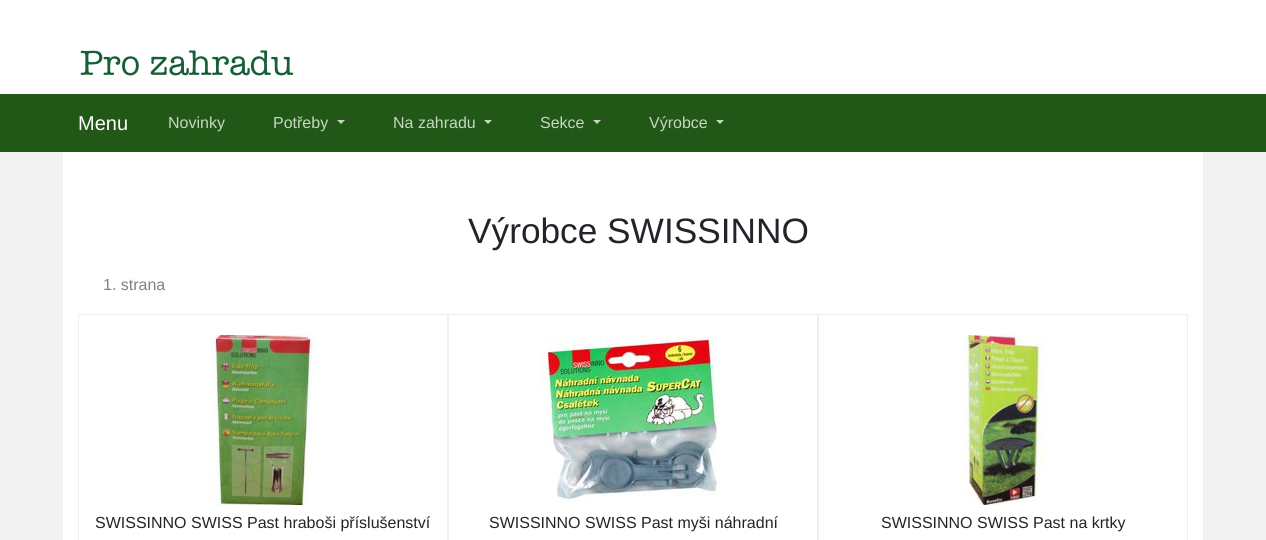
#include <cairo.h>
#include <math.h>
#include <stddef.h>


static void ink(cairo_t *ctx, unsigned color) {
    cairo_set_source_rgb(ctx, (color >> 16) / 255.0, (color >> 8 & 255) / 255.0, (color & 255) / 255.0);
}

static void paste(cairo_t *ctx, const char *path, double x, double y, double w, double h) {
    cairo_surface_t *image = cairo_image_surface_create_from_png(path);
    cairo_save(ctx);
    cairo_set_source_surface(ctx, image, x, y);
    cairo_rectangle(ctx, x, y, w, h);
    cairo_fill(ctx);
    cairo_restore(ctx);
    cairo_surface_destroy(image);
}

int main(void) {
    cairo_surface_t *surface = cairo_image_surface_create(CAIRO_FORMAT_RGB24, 1266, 540);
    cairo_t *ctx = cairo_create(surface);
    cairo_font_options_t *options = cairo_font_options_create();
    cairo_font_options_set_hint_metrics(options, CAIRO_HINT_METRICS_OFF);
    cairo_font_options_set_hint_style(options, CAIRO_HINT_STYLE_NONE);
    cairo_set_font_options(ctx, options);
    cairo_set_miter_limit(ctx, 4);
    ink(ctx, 0xF3F2F3);
    cairo_paint(ctx);
    ink(ctx, 0xFFFFFF);
    cairo_rectangle(ctx, 0, 0, 1266, 94);
    cairo_fill(ctx);
    paste(ctx, "media/1.png", 80, 50, 214, 26);
    ink(ctx, 0x215817);
    cairo_rectangle(ctx, 0, 94, 1266, 58);
    cairo_fill(ctx);
    cairo_select_font_face(ctx, "Liberation Sans", CAIRO_FONT_SLANT_NORMAL, CAIRO_FONT_WEIGHT_NORMAL);
    cairo_set_font_size(ctx, 20);
    ink(ctx, 0xFFFFFF);
    cairo_move_to(ctx, 78, 130);
    cairo_show_text(ctx, "Menu");
    cairo_set_font_size(ctx, 16);
    ink(ctx, 0xC8D5C5);
    cairo_move_to(ctx, 168, 128);
    cairo_show_text(ctx, "Novinky");
    cairo_move_to(ctx, 273, 128);
    cairo_show_text(ctx, "Potřeby");
    cairo_new_path(ctx);
    cairo_move_to(ctx, 337, 120);
    cairo_line_to(ctx, 345, 120);
    cairo_line_to(ctx, 341, 124);
    cairo_close_path(ctx);
    cairo_fill(ctx);
    cairo_move_to(ctx, 393, 128);
    cairo_show_text(ctx, "Na zahradu");
    cairo_new_path(ctx);
    cairo_move_to(ctx, 484, 120);
    cairo_line_to(ctx, 492, 120);
    cairo_line_to(ctx, 488, 124);
    cairo_close_path(ctx);
    cairo_fill(ctx);
    cairo_move_to(ctx, 540, 128);
    cairo_show_text(ctx, "Sekce");
    cairo_new_path(ctx);
    cairo_move_to(ctx, 593, 120);
    cairo_line_to(ctx, 601, 120);
    cairo_line_to(ctx, 597, 124);
    cairo_close_path(ctx);
    cairo_fill(ctx);
    cairo_move_to(ctx, 649, 128);
    cairo_show_text(ctx, "Výrobce");
    cairo_new_path(ctx);
    cairo_move_to(ctx, 716, 120);
    cairo_line_to(ctx, 724, 120);
    cairo_line_to(ctx, 720, 124);
    cairo_close_path(ctx);
    cairo_fill(ctx);
    ink(ctx, 0xFFFFFF);
    cairo_rectangle(ctx, 63, 152, 1140, 388);
    cairo_fill(ctx);
    cairo_set_font_size(ctx, 35.25);
    ink(ctx, 0x212529);
    cairo_move_to(ctx, 468, 243);
    cairo_show_text(ctx, "Výrobce SWISSINNO");
    cairo_set_font_size(ctx, 16);
    ink(ctx, 0x808080);
    cairo_move_to(ctx, 103, 290);
    cairo_show_text(ctx, "1. strana");
    cairo_rectangle(ctx, 78.5, 314.5, 369, 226);
    ink(ctx, 0xEEEEEE);
    cairo_set_line_width(ctx, 1);
    cairo_stroke(ctx);
    paste(ctx, "media/2.png", 211, 335, 107, 170);
    ink(ctx, 0x212529);
    cairo_move_to(ctx, 95, 528);
    cairo_show_text(ctx, "SWISSINNO SWISS Past hraboši příslušenství");
    cairo_rectangle(ctx, 448.5, 314.5, 369, 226);
    ink(ctx, 0xEEEEEE);
    cairo_stroke(ctx);
    paste(ctx, "media/3.png", 540, 336, 180, 167);
    ink(ctx, 0x212529);
    cairo_move_to(ctx, 489, 528);
    cairo_show_text(ctx, "SWISSINNO SWISS Past myši náhradní");
    cairo_rectangle(ctx, 818.5, 314.5, 369, 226);
    ink(ctx, 0xEEEEEE);
    cairo_stroke(ctx);
    paste(ctx, "media/4.png", 962, 335, 88, 170);
    ink(ctx, 0x212529);
    cairo_move_to(ctx, 881, 528);
    cairo_show_text(ctx, "SWISSINNO SWISS Past na krtky");
    cairo_surface_write_to_png(surface, "image.png");
    cairo_font_options_destroy(options);
    cairo_destroy(ctx);
    cairo_surface_destroy(surface);
    return 0;
}
